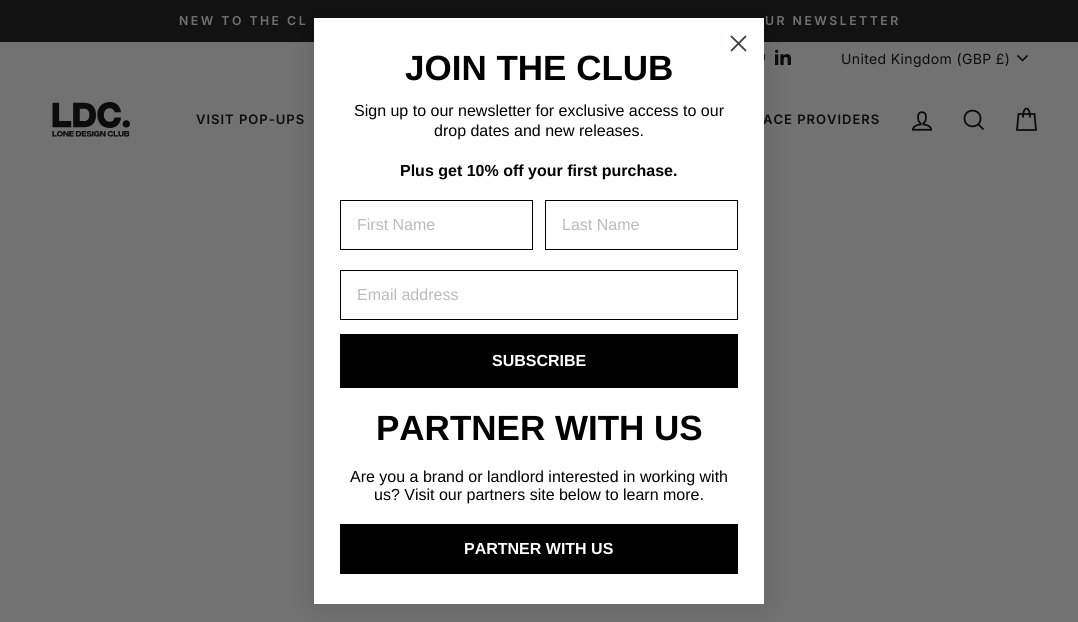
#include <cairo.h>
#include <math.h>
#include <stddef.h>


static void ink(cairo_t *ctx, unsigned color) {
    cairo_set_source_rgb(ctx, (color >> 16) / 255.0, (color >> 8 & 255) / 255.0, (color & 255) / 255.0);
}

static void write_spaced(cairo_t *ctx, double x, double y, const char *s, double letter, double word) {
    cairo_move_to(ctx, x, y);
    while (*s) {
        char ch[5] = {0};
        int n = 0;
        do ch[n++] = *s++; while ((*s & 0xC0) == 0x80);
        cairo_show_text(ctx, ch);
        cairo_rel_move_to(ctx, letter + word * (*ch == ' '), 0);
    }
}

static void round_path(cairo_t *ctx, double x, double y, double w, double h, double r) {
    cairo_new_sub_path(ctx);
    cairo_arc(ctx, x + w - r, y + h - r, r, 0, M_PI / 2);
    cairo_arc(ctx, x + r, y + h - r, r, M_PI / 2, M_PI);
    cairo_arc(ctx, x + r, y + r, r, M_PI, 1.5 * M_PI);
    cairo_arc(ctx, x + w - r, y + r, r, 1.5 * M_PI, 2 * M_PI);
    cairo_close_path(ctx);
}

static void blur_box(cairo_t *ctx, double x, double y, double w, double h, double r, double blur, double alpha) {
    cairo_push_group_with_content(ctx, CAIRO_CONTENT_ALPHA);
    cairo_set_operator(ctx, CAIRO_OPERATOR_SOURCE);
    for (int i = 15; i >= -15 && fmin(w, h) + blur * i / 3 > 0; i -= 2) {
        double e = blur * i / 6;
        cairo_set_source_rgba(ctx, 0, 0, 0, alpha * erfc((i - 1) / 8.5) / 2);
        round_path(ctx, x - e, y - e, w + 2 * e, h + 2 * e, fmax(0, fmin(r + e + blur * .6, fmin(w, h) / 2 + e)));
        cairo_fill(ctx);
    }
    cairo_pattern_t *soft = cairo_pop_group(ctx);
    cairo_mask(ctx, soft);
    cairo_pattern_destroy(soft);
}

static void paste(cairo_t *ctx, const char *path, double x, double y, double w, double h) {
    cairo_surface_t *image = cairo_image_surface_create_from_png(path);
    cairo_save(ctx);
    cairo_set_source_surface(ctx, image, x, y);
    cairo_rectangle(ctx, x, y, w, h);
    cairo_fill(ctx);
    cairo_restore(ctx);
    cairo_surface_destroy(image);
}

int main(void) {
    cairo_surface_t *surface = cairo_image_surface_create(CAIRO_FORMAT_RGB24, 1078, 622);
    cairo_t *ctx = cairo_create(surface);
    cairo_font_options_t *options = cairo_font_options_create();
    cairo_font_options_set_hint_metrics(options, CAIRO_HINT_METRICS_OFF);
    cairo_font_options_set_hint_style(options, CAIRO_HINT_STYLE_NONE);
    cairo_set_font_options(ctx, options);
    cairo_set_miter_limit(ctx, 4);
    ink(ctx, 0x727272);
    cairo_paint(ctx);
    ink(ctx, 0x121212);
    cairo_rectangle(ctx, 0, 0, 1078, 42);
    cairo_fill(ctx);
    cairo_select_font_face(ctx, "Inter SemiBold", CAIRO_FONT_SLANT_NORMAL, CAIRO_FONT_WEIGHT_NORMAL);
    cairo_set_font_size(ctx, 12.25);
    ink(ctx, 0x727272);
    write_spaced(ctx, 179, 25, "NEW TO THE CL", 2.5, 0);
    write_spaced(ctx, 765, 25, "UR NEWSLETTER", 2.5, 0);
    paste(ctx, "media/1.png", 764, 53, 1, 8);
    paste(ctx, "media/2.png", 775, 49, 16, 16);
    cairo_select_font_face(ctx, "Inter", CAIRO_FONT_SLANT_NORMAL, CAIRO_FONT_WEIGHT_NORMAL);
    cairo_set_font_size(ctx, 14);
    ink(ctx, 0x0C0C0C);
    write_spaced(ctx, 841, 64, "United Kingdom (GBP £)", 0.35, 0);
    cairo_new_path(ctx);
    cairo_move_to(ctx, 1017.5, 55.5);
    cairo_line_to(ctx, 1022.5, 60.5);
    cairo_line_to(ctx, 1027.5, 55.5);
    cairo_set_line_width(ctx, 1.6);
    cairo_stroke(ctx);
    paste(ctx, "media/3.png", 52, 102, 78, 35);
    cairo_select_font_face(ctx, "Inter SemiBold", CAIRO_FONT_SLANT_NORMAL, CAIRO_FONT_WEIGHT_NORMAL);
    cairo_set_font_size(ctx, 13);
    write_spaced(ctx, 196, 124, "VISIT POP-UPS", 1, 0);
    write_spaced(ctx, 763, 124, "ACE PROVIDERS", 1, 0);
    paste(ctx, "media/4.png", 911, 111, 22, 20);
    cairo_new_path(ctx);
    cairo_move_to(ctx, 980.5, 118.5);
    cairo_curve_to(ctx, 980.5, 129, 964.5, 129, 964.5, 118.5);
    cairo_curve_to(ctx, 964.5, 108, 980.5, 108, 980.5, 118.5);
    cairo_close_path(ctx);
    cairo_move_to(ctx, 983.5, 129.5);
    cairo_line_to(ctx, 978.5, 124.5);
    cairo_set_line_width(ctx, 1.8);
    cairo_stroke(ctx);
    cairo_new_path(ctx);
    cairo_move_to(ctx, 1023, 117.5);
    cairo_curve_to(ctx, 1023, 105.5, 1030, 105.5, 1030, 117.5);
    cairo_move_to(ctx, 1018.5, 114);
    cairo_line_to(ctx, 1034.5, 114);
    cairo_line_to(ctx, 1036, 130);
    cairo_line_to(ctx, 1017, 130);
    cairo_close_path(ctx);
    cairo_stroke(ctx);
    ink(ctx, 0x000000);
    blur_box(ctx, 314, 18, 450, 586, 0, 15, 0.15);
    ink(ctx, 0xFFFFFF);
    cairo_rectangle(ctx, 314, 18, 450, 586);
    cairo_fill(ctx);
    cairo_new_path(ctx);
    cairo_move_to(ctx, 731.5, 36.5);
    cairo_line_to(ctx, 745.5, 50.5);
    cairo_move_to(ctx, 731.5, 50.5);
    cairo_line_to(ctx, 745.5, 36.5);
    cairo_close_path(ctx);
    ink(ctx, 0x373F47);
    cairo_set_line_cap(ctx, CAIRO_LINE_CAP_ROUND);
    cairo_set_line_join(ctx, CAIRO_LINE_JOIN_ROUND);
    cairo_stroke(ctx);
    cairo_select_font_face(ctx, "Liberation Sans", CAIRO_FONT_SLANT_NORMAL, CAIRO_FONT_WEIGHT_BOLD);
    cairo_set_font_size(ctx, 35);
    ink(ctx, 0x000000);
    cairo_move_to(ctx, 405, 80);
    cairo_show_text(ctx, "JOIN THE CLUB");
    cairo_select_font_face(ctx, "Liberation Sans", CAIRO_FONT_SLANT_NORMAL, CAIRO_FONT_WEIGHT_NORMAL);
    cairo_set_font_size(ctx, 16);
    cairo_move_to(ctx, 354, 116);
    cairo_show_text(ctx, "Sign up to our newsletter for exclusive access to our");
    cairo_move_to(ctx, 434, 136);
    cairo_show_text(ctx, "drop dates and new releases.");
    cairo_select_font_face(ctx, "Liberation Sans", CAIRO_FONT_SLANT_NORMAL, CAIRO_FONT_WEIGHT_BOLD);
    cairo_move_to(ctx, 400, 176);
    cairo_show_text(ctx, "Plus get 10% off your first purchase.");
    cairo_rectangle(ctx, 340.5, 200.5, 192, 49);
    cairo_set_line_width(ctx, 1);
    cairo_set_line_cap(ctx, CAIRO_LINE_CAP_BUTT);
    cairo_set_line_join(ctx, CAIRO_LINE_JOIN_MITER);
    cairo_stroke(ctx);
    cairo_select_font_face(ctx, "Liberation Sans", CAIRO_FONT_SLANT_NORMAL, CAIRO_FONT_WEIGHT_NORMAL);
    ink(ctx, 0xBBBBBB);
    cairo_move_to(ctx, 357, 230);
    cairo_show_text(ctx, "First Name");
    cairo_rectangle(ctx, 545.5, 200.5, 192, 49);
    ink(ctx, 0x000000);
    cairo_stroke(ctx);
    ink(ctx, 0xBBBBBB);
    cairo_move_to(ctx, 562, 230);
    cairo_show_text(ctx, "Last Name");
    cairo_rectangle(ctx, 340.5, 270.5, 397, 49);
    ink(ctx, 0x000000);
    cairo_stroke(ctx);
    ink(ctx, 0xBBBBBB);
    cairo_move_to(ctx, 357, 300);
    cairo_show_text(ctx, "Email address");
    ink(ctx, 0x000000);
    cairo_rectangle(ctx, 340, 334, 398, 54);
    cairo_fill(ctx);
    cairo_select_font_face(ctx, "Liberation Sans", CAIRO_FONT_SLANT_NORMAL, CAIRO_FONT_WEIGHT_BOLD);
    ink(ctx, 0xFFFFFF);
    cairo_move_to(ctx, 492, 366);
    cairo_show_text(ctx, "SUBSCRIBE");
    cairo_set_font_size(ctx, 35);
    ink(ctx, 0x000000);
    cairo_move_to(ctx, 376, 440);
    cairo_show_text(ctx, "PARTNER WITH US");
    cairo_select_font_face(ctx, "Liberation Sans", CAIRO_FONT_SLANT_NORMAL, CAIRO_FONT_WEIGHT_NORMAL);
    cairo_set_font_size(ctx, 16);
    cairo_move_to(ctx, 350, 482);
    cairo_show_text(ctx, "Are you a brand or landlord interested in working with");
    cairo_move_to(ctx, 374, 500);
    cairo_show_text(ctx, "us? Visit our partners site below to learn more.");
    cairo_rectangle(ctx, 340, 524, 398, 50);
    cairo_fill(ctx);
    cairo_select_font_face(ctx, "Liberation Sans", CAIRO_FONT_SLANT_NORMAL, CAIRO_FONT_WEIGHT_BOLD);
    ink(ctx, 0xFFFFFF);
    cairo_move_to(ctx, 464, 554);
    cairo_show_text(ctx, "PARTNER WITH US");
    cairo_surface_write_to_png(surface, "image.png");
    cairo_font_options_destroy(options);
    cairo_destroy(ctx);
    cairo_surface_destroy(surface);
    return 0;
}
